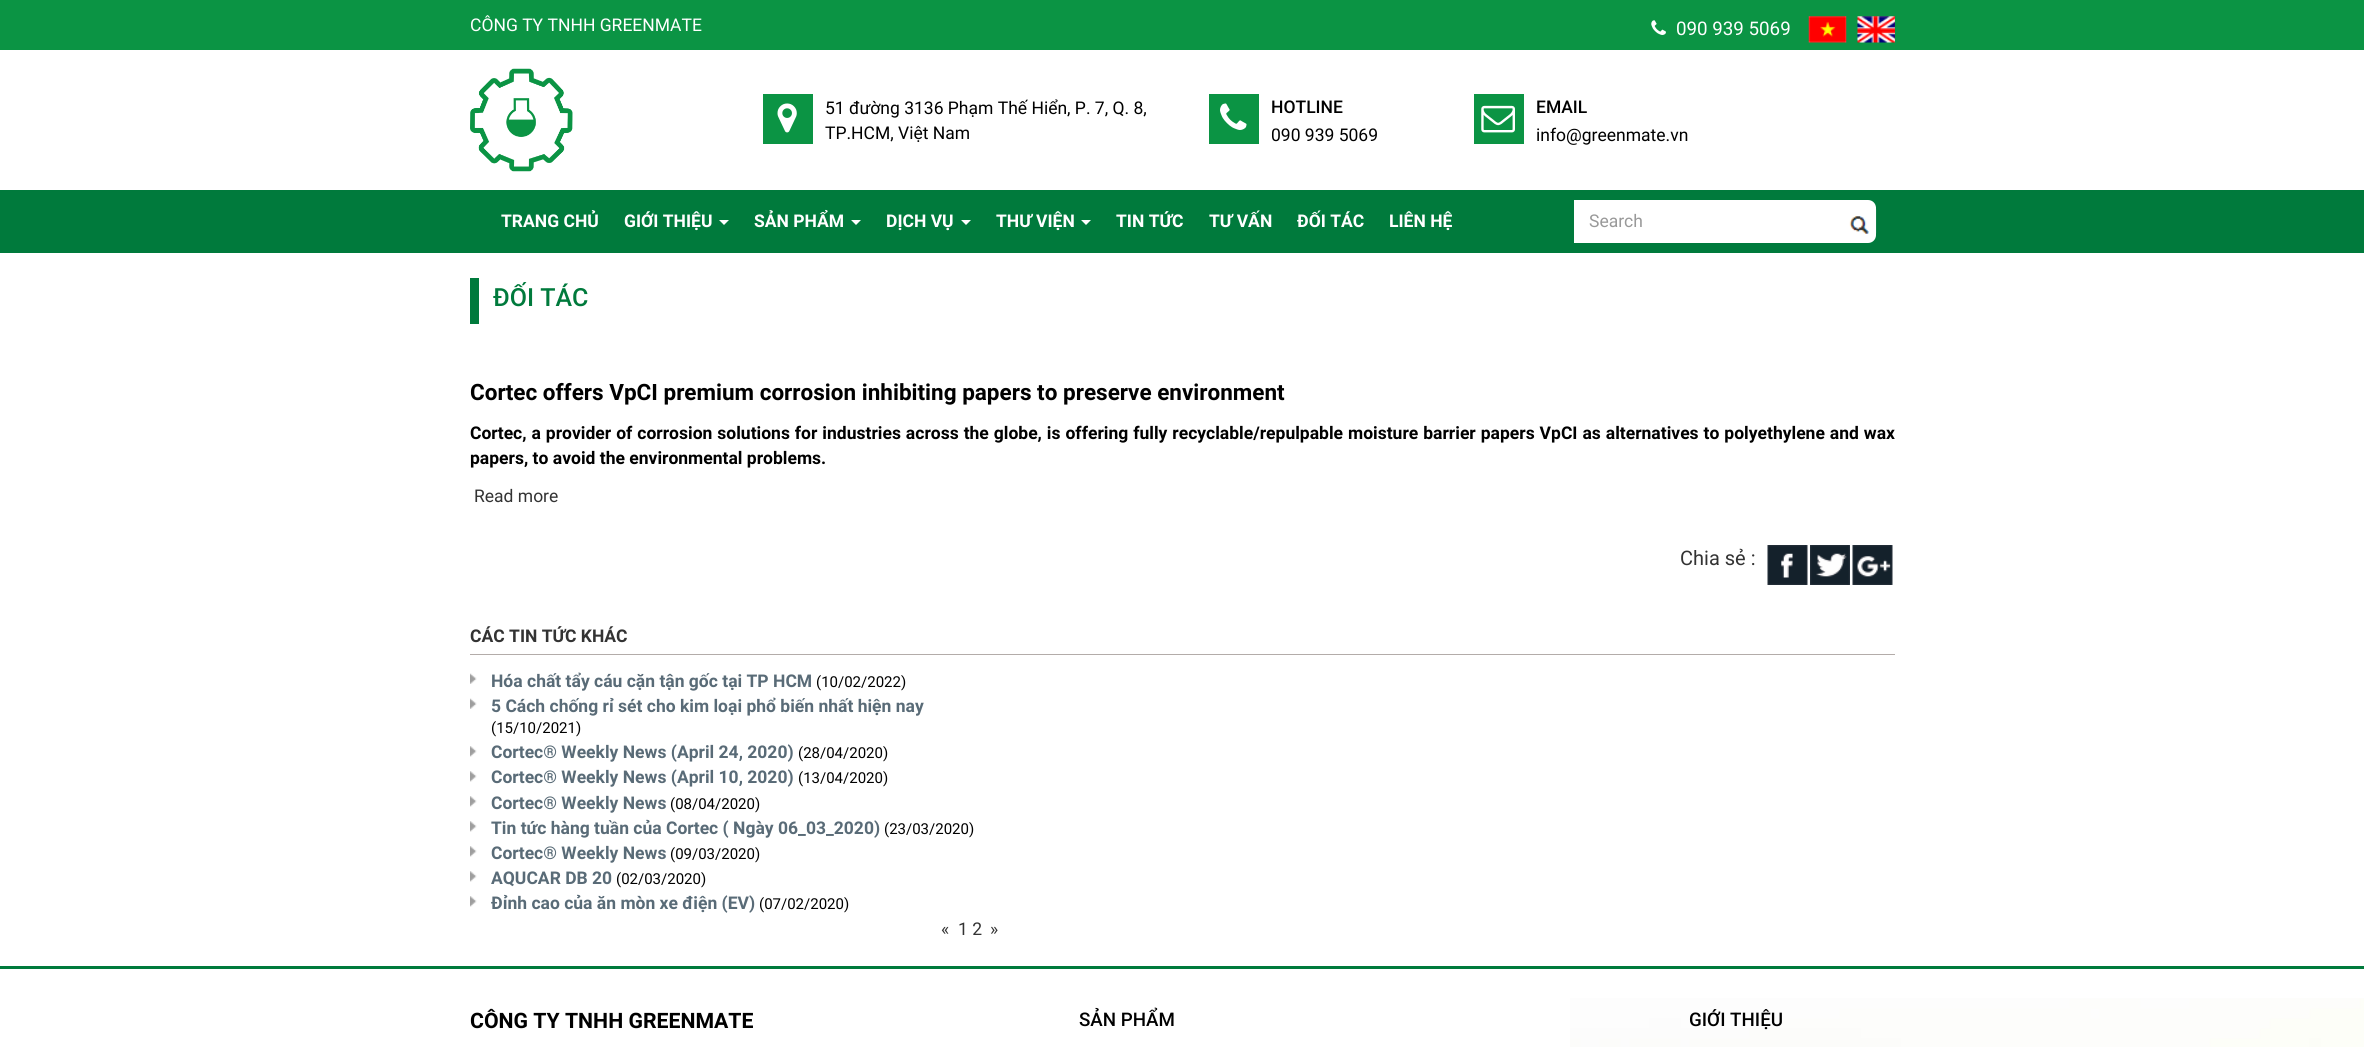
#include <cairo.h>
#include <math.h>
#include <stddef.h>

typedef struct { double x, y; const char *s; } line_t;

static void ink(cairo_t *ctx, unsigned color) {
    cairo_set_source_rgb(ctx, (color >> 16) / 255.0, (color >> 8 & 255) / 255.0, (color & 255) / 255.0);
}

static void write_spaced(cairo_t *ctx, double x, double y, const char *s, double letter, double word) {
    cairo_move_to(ctx, x, y);
    while (*s) {
        char ch[5] = {0};
        int n = 0;
        do ch[n++] = *s++; while ((*s & 0xC0) == 0x80);
        cairo_show_text(ctx, ch);
        cairo_rel_move_to(ctx, letter + word * (*ch == ' '), 0);
    }
}

static void paste(cairo_t *ctx, const char *path, double x, double y, double w, double h) {
    cairo_surface_t *image = cairo_image_surface_create_from_png(path);
    cairo_save(ctx);
    cairo_set_source_surface(ctx, image, x, y);
    cairo_rectangle(ctx, x, y, w, h);
    cairo_fill(ctx);
    cairo_restore(ctx);
    cairo_surface_destroy(image);
}

int main(void) {
    cairo_surface_t *surface = cairo_image_surface_create(CAIRO_FORMAT_RGB24, 2364, 1047);
    cairo_t *ctx = cairo_create(surface);
    cairo_font_options_t *options = cairo_font_options_create();
    cairo_font_options_set_hint_metrics(options, CAIRO_HINT_METRICS_OFF);
    cairo_font_options_set_hint_style(options, CAIRO_HINT_STYLE_NONE);
    cairo_set_font_options(ctx, options);
    cairo_set_miter_limit(ctx, 4);
    ink(ctx, 0xFFFFFF);
    cairo_paint(ctx);
    ink(ctx, 0x0B9444);
    cairo_rectangle(ctx, 0, 0, 2364, 50);
    cairo_fill(ctx);
    cairo_select_font_face(ctx, "Roboto", CAIRO_FONT_SLANT_NORMAL, CAIRO_FONT_WEIGHT_NORMAL);
    cairo_set_font_size(ctx, 17.5);
    ink(ctx, 0xFFFFFF);
    cairo_move_to(ctx, 470, 31);
    cairo_show_text(ctx, "CÔNG TY TNHH GREENMATE");
    paste(ctx, "media/1.png", 1651, 20, 15, 15);
    cairo_set_font_size(ctx, 18.75);
    cairo_move_to(ctx, 1676, 35);
    cairo_show_text(ctx, "090 939 5069");
    paste(ctx, "media/2.png", 1808, 16, 39, 27);
    paste(ctx, "media/3.png", 1857, 16, 38, 27);
    paste(ctx, "media/4.png", 470, 68, 103, 104);
    ink(ctx, 0x0B9444);
    cairo_rectangle(ctx, 763, 94, 50, 50);
    cairo_fill(ctx);
    paste(ctx, "media/5.png", 777, 103, 20, 30);
    cairo_set_font_size(ctx, 17.5);
    ink(ctx, 0x000000);
    cairo_move_to(ctx, 825, 114);
    cairo_show_text(ctx, "51 đường 3136 Phạm Thế Hiển, P. 7, Q. 8,");
    cairo_move_to(ctx, 825, 139);
    cairo_show_text(ctx, "TP.HCM, Việt Nam");
    ink(ctx, 0x0B9444);
    cairo_rectangle(ctx, 1209, 94, 50, 50);
    cairo_fill(ctx);
    paste(ctx, "media/6.png", 1220, 103, 27, 27);
    cairo_select_font_face(ctx, "Roboto Medium", CAIRO_FONT_SLANT_NORMAL, CAIRO_FONT_WEIGHT_NORMAL);
    ink(ctx, 0x000000);
    cairo_move_to(ctx, 1271, 113);
    cairo_show_text(ctx, "HOTLINE");
    cairo_select_font_face(ctx, "Roboto", CAIRO_FONT_SLANT_NORMAL, CAIRO_FONT_WEIGHT_NORMAL);
    cairo_move_to(ctx, 1271, 141);
    cairo_show_text(ctx, "090 939 5069");
    ink(ctx, 0x0B9444);
    cairo_rectangle(ctx, 1474, 94, 50, 50);
    cairo_fill(ctx);
    paste(ctx, "media/7.png", 1481, 105, 34, 28);
    cairo_select_font_face(ctx, "Roboto Medium", CAIRO_FONT_SLANT_NORMAL, CAIRO_FONT_WEIGHT_NORMAL);
    ink(ctx, 0x000000);
    cairo_move_to(ctx, 1536, 113);
    cairo_show_text(ctx, "EMAIL");
    cairo_select_font_face(ctx, "Roboto", CAIRO_FONT_SLANT_NORMAL, CAIRO_FONT_WEIGHT_NORMAL);
    cairo_move_to(ctx, 1536, 141);
    cairo_show_text(ctx, "info@greenmate.vn");
    ink(ctx, 0x007A3C);
    cairo_rectangle(ctx, 0, 190, 2364, 63);
    cairo_fill(ctx);
    cairo_select_font_face(ctx, "Roboto", CAIRO_FONT_SLANT_NORMAL, CAIRO_FONT_WEIGHT_BOLD);
    ink(ctx, 0xFFFFFF);
    cairo_move_to(ctx, 501, 227);
    cairo_show_text(ctx, "TRANG CHỦ");
    cairo_move_to(ctx, 624, 227);
    cairo_show_text(ctx, "GIỚI THIỆU");
    cairo_new_path(ctx);
    cairo_move_to(ctx, 719, 220);
    cairo_line_to(ctx, 729, 220);
    cairo_line_to(ctx, 724, 225);
    cairo_close_path(ctx);
    cairo_fill(ctx);
    cairo_move_to(ctx, 754, 227);
    cairo_show_text(ctx, "SẢN PHẨM");
    cairo_new_path(ctx);
    cairo_move_to(ctx, 851, 220);
    cairo_line_to(ctx, 861, 220);
    cairo_line_to(ctx, 856, 225);
    cairo_close_path(ctx);
    cairo_fill(ctx);
    cairo_move_to(ctx, 886, 227);
    cairo_show_text(ctx, "DỊCH VỤ");
    cairo_new_path(ctx);
    cairo_move_to(ctx, 961, 220);
    cairo_line_to(ctx, 971, 220);
    cairo_line_to(ctx, 966, 225);
    cairo_close_path(ctx);
    cairo_fill(ctx);
    cairo_move_to(ctx, 996, 227);
    cairo_show_text(ctx, "THƯ VIỆN");
    cairo_new_path(ctx);
    cairo_move_to(ctx, 1081, 220);
    cairo_line_to(ctx, 1091, 220);
    cairo_line_to(ctx, 1086, 225);
    cairo_close_path(ctx);
    cairo_fill(ctx);
    {
        static const line_t items[] = {
            {1116, 227, "TIN TỨC"},
            {1209, 227, "TƯ VẤN"},
            {1297, 227, "ĐỐI TÁC"},
            {1389, 227, "LIÊN HỆ"},
        };
        for (size_t i = 0; i < sizeof items / sizeof *items; i++) {
            cairo_move_to(ctx, items[i].x, items[i].y);
            cairo_show_text(ctx, items[i].s);
        }
    }
    cairo_new_path(ctx);
    cairo_move_to(ctx, 1574, 200);
    cairo_line_to(ctx, 1868, 200);
    cairo_curve_to(ctx, 1872.5, 200, 1876, 203.5, 1876, 208);
    cairo_line_to(ctx, 1876, 235);
    cairo_curve_to(ctx, 1876, 239.5, 1872.5, 243, 1868, 243);
    cairo_line_to(ctx, 1574, 243);
    cairo_close_path(ctx);
    cairo_fill(ctx);
    cairo_select_font_face(ctx, "Roboto", CAIRO_FONT_SLANT_NORMAL, CAIRO_FONT_WEIGHT_NORMAL);
    ink(ctx, 0x999999);
    cairo_move_to(ctx, 1589, 227);
    cairo_show_text(ctx, "Search");
    ink(ctx, 0xFFFFFF);
    cairo_new_path(ctx);
    cairo_move_to(ctx, 1844, 205);
    cairo_line_to(ctx, 1871, 205);
    cairo_curve_to(ctx, 1874, 205, 1876, 207, 1876, 210);
    cairo_line_to(ctx, 1876, 233);
    cairo_curve_to(ctx, 1876, 236, 1874, 238, 1871, 238);
    cairo_line_to(ctx, 1844, 238);
    cairo_close_path(ctx);
    cairo_fill(ctx);
    paste(ctx, "media/8.png", 1849, 207, 28, 27);
    ink(ctx, 0x007A3C);
    cairo_rectangle(ctx, 470, 278, 9, 46);
    cairo_fill(ctx);
    cairo_select_font_face(ctx, "Roboto Medium", CAIRO_FONT_SLANT_NORMAL, CAIRO_FONT_WEIGHT_NORMAL);
    cairo_set_font_size(ctx, 25);
    cairo_move_to(ctx, 493, 306);
    cairo_show_text(ctx, "ĐỐI TÁC");
    cairo_select_font_face(ctx, "Roboto", CAIRO_FONT_SLANT_NORMAL, CAIRO_FONT_WEIGHT_BOLD);
    cairo_set_font_size(ctx, 22.5);
    ink(ctx, 0x000000);
    cairo_move_to(ctx, 470, 400);
    cairo_show_text(ctx, "Cortec offers VpCI premium corrosion inhibiting papers to preserve environment");
    cairo_set_font_size(ctx, 17.5);
    write_spaced(ctx, 470, 439, "Cortec, a provider of corrosion solutions for industries across the globe, is offering fully recyclable/repulpable moisture barrier papers VpCI as alternatives to polyethylene and wax", 0, 0.6);
    cairo_move_to(ctx, 470, 464);
    cairo_show_text(ctx, "papers, to avoid the environmental problems.");
    cairo_select_font_face(ctx, "Roboto", CAIRO_FONT_SLANT_NORMAL, CAIRO_FONT_WEIGHT_NORMAL);
    ink(ctx, 0x333333);
    cairo_move_to(ctx, 474, 502);
    cairo_show_text(ctx, "Read more");
    cairo_set_font_size(ctx, 20);
    cairo_move_to(ctx, 1680, 565);
    cairo_show_text(ctx, "Chia sẻ :");
    paste(ctx, "media/9.png", 1767, 545, 41, 40);
    paste(ctx, "media/10.png", 1810, 545, 40, 40);
    paste(ctx, "media/11.png", 1852, 545, 41, 40);
    ink(ctx, 0xB3ACA9);
    cairo_rectangle(ctx, 470, 654, 1425, 1);
    cairo_fill(ctx);
    cairo_select_font_face(ctx, "Roboto", CAIRO_FONT_SLANT_NORMAL, CAIRO_FONT_WEIGHT_BOLD);
    cairo_set_font_size(ctx, 17.5);
    ink(ctx, 0x333333);
    cairo_move_to(ctx, 470, 642);
    cairo_show_text(ctx, "CÁC TIN TỨC KHÁC");
    paste(ctx, "media/12.png", 470, 673, 7, 11);
    ink(ctx, 0x596B77);
    cairo_move_to(ctx, 491, 687);
    cairo_show_text(ctx, "Hóa chất tẩy cáu cặn tận gốc tại TP HCM");
    cairo_select_font_face(ctx, "Roboto", CAIRO_FONT_SLANT_NORMAL, CAIRO_FONT_WEIGHT_NORMAL);
    cairo_set_font_size(ctx, 15);
    ink(ctx, 0x000000);
    cairo_move_to(ctx, 816, 687);
    cairo_show_text(ctx, "(10/02/2022)");
    paste(ctx, "media/12.png", 470, 698, 7, 11);
    cairo_select_font_face(ctx, "Roboto", CAIRO_FONT_SLANT_NORMAL, CAIRO_FONT_WEIGHT_BOLD);
    cairo_set_font_size(ctx, 17.5);
    ink(ctx, 0x596B77);
    cairo_move_to(ctx, 491, 712);
    cairo_show_text(ctx, "5 Cách chống rỉ sét cho kim loại phổ biến nhất hiện nay");
    cairo_select_font_face(ctx, "Roboto", CAIRO_FONT_SLANT_NORMAL, CAIRO_FONT_WEIGHT_NORMAL);
    cairo_set_font_size(ctx, 15);
    ink(ctx, 0x000000);
    cairo_move_to(ctx, 491, 733);
    cairo_show_text(ctx, "(15/10/2021)");
    paste(ctx, "media/13.png", 470, 746, 7, 11);
    cairo_select_font_face(ctx, "Roboto", CAIRO_FONT_SLANT_NORMAL, CAIRO_FONT_WEIGHT_BOLD);
    cairo_set_font_size(ctx, 17.5);
    ink(ctx, 0x596B77);
    cairo_move_to(ctx, 491, 758);
    cairo_show_text(ctx, "Cortec® Weekly News (April 24, 2020)");
    cairo_select_font_face(ctx, "Roboto", CAIRO_FONT_SLANT_NORMAL, CAIRO_FONT_WEIGHT_NORMAL);
    cairo_set_font_size(ctx, 15);
    ink(ctx, 0x000000);
    cairo_move_to(ctx, 798, 758);
    cairo_show_text(ctx, "(28/04/2020)");
    paste(ctx, "media/13.png", 470, 771, 7, 11);
    cairo_select_font_face(ctx, "Roboto", CAIRO_FONT_SLANT_NORMAL, CAIRO_FONT_WEIGHT_BOLD);
    cairo_set_font_size(ctx, 17.5);
    ink(ctx, 0x596B77);
    cairo_move_to(ctx, 491, 783);
    cairo_show_text(ctx, "Cortec® Weekly News (April 10, 2020)");
    cairo_select_font_face(ctx, "Roboto", CAIRO_FONT_SLANT_NORMAL, CAIRO_FONT_WEIGHT_NORMAL);
    cairo_set_font_size(ctx, 15);
    ink(ctx, 0x000000);
    cairo_move_to(ctx, 798, 783);
    cairo_show_text(ctx, "(13/04/2020)");
    paste(ctx, "media/13.png", 470, 796, 7, 11);
    cairo_select_font_face(ctx, "Roboto", CAIRO_FONT_SLANT_NORMAL, CAIRO_FONT_WEIGHT_BOLD);
    cairo_set_font_size(ctx, 17.5);
    ink(ctx, 0x596B77);
    cairo_move_to(ctx, 491, 809);
    cairo_show_text(ctx, "Cortec® Weekly News");
    cairo_select_font_face(ctx, "Roboto", CAIRO_FONT_SLANT_NORMAL, CAIRO_FONT_WEIGHT_NORMAL);
    cairo_set_font_size(ctx, 15);
    ink(ctx, 0x000000);
    cairo_move_to(ctx, 670, 809);
    cairo_show_text(ctx, "(08/04/2020)");
    paste(ctx, "media/13.png", 470, 821, 7, 11);
    cairo_select_font_face(ctx, "Roboto", CAIRO_FONT_SLANT_NORMAL, CAIRO_FONT_WEIGHT_BOLD);
    cairo_set_font_size(ctx, 17.5);
    ink(ctx, 0x596B77);
    cairo_move_to(ctx, 491, 834);
    cairo_show_text(ctx, "Tin tức hàng tuần của Cortec ( Ngày 06_03_2020)");
    cairo_select_font_face(ctx, "Roboto", CAIRO_FONT_SLANT_NORMAL, CAIRO_FONT_WEIGHT_NORMAL);
    cairo_set_font_size(ctx, 15);
    ink(ctx, 0x000000);
    cairo_move_to(ctx, 884, 834);
    cairo_show_text(ctx, "(23/03/2020)");
    paste(ctx, "media/13.png", 470, 846, 7, 11);
    cairo_select_font_face(ctx, "Roboto", CAIRO_FONT_SLANT_NORMAL, CAIRO_FONT_WEIGHT_BOLD);
    cairo_set_font_size(ctx, 17.5);
    ink(ctx, 0x596B77);
    cairo_move_to(ctx, 491, 859);
    cairo_show_text(ctx, "Cortec® Weekly News");
    cairo_select_font_face(ctx, "Roboto", CAIRO_FONT_SLANT_NORMAL, CAIRO_FONT_WEIGHT_NORMAL);
    cairo_set_font_size(ctx, 15);
    ink(ctx, 0x000000);
    cairo_move_to(ctx, 670, 859);
    cairo_show_text(ctx, "(09/03/2020)");
    paste(ctx, "media/13.png", 470, 871, 7, 11);
    cairo_select_font_face(ctx, "Roboto", CAIRO_FONT_SLANT_NORMAL, CAIRO_FONT_WEIGHT_BOLD);
    cairo_set_font_size(ctx, 17.5);
    ink(ctx, 0x596B77);
    cairo_move_to(ctx, 491, 884);
    cairo_show_text(ctx, "AQUCAR DB 20");
    cairo_select_font_face(ctx, "Roboto", CAIRO_FONT_SLANT_NORMAL, CAIRO_FONT_WEIGHT_NORMAL);
    cairo_set_font_size(ctx, 15);
    ink(ctx, 0x000000);
    cairo_move_to(ctx, 616, 884);
    cairo_show_text(ctx, "(02/03/2020)");
    paste(ctx, "media/13.png", 470, 896, 7, 11);
    cairo_select_font_face(ctx, "Roboto", CAIRO_FONT_SLANT_NORMAL, CAIRO_FONT_WEIGHT_BOLD);
    cairo_set_font_size(ctx, 17.5);
    ink(ctx, 0x596B77);
    cairo_move_to(ctx, 491, 909);
    cairo_show_text(ctx, "Đỉnh cao của ăn mòn xe điện (EV)");
    cairo_select_font_face(ctx, "Roboto", CAIRO_FONT_SLANT_NORMAL, CAIRO_FONT_WEIGHT_NORMAL);
    cairo_set_font_size(ctx, 15);
    ink(ctx, 0x000000);
    cairo_move_to(ctx, 759, 909);
    cairo_show_text(ctx, "(07/02/2020)");
    cairo_set_font_size(ctx, 17.5);
    ink(ctx, 0x333333);
    {
        static const line_t items[] = {
            {941, 935, "«"},
            {958, 935, "1 2"},
            {990, 935, "»"},
        };
        for (size_t i = 0; i < sizeof items / sizeof *items; i++) {
            cairo_move_to(ctx, items[i].x, items[i].y);
            cairo_show_text(ctx, items[i].s);
        }
    }
    paste(ctx, "media/14.png", 1570, 998, 794, 49);
    ink(ctx, 0x007A3C);
    cairo_rectangle(ctx, 0, 966, 2364, 3);
    cairo_fill(ctx);
    cairo_select_font_face(ctx, "Roboto", CAIRO_FONT_SLANT_NORMAL, CAIRO_FONT_WEIGHT_BOLD);
    cairo_set_font_size(ctx, 21.25);
    ink(ctx, 0x000000);
    cairo_move_to(ctx, 470, 1028);
    cairo_show_text(ctx, "CÔNG TY TNHH GREENMATE");
    cairo_select_font_face(ctx, "Roboto Medium", CAIRO_FONT_SLANT_NORMAL, CAIRO_FONT_WEIGHT_NORMAL);
    cairo_set_font_size(ctx, 18.75);
    cairo_move_to(ctx, 1079, 1026);
    cairo_show_text(ctx, "SẢN PHẨM");
    cairo_move_to(ctx, 1689, 1026);
    cairo_show_text(ctx, "GIỚI THIỆU");
    cairo_surface_write_to_png(surface, "image.png");
    cairo_font_options_destroy(options);
    cairo_destroy(ctx);
    cairo_surface_destroy(surface);
    return 0;
}
